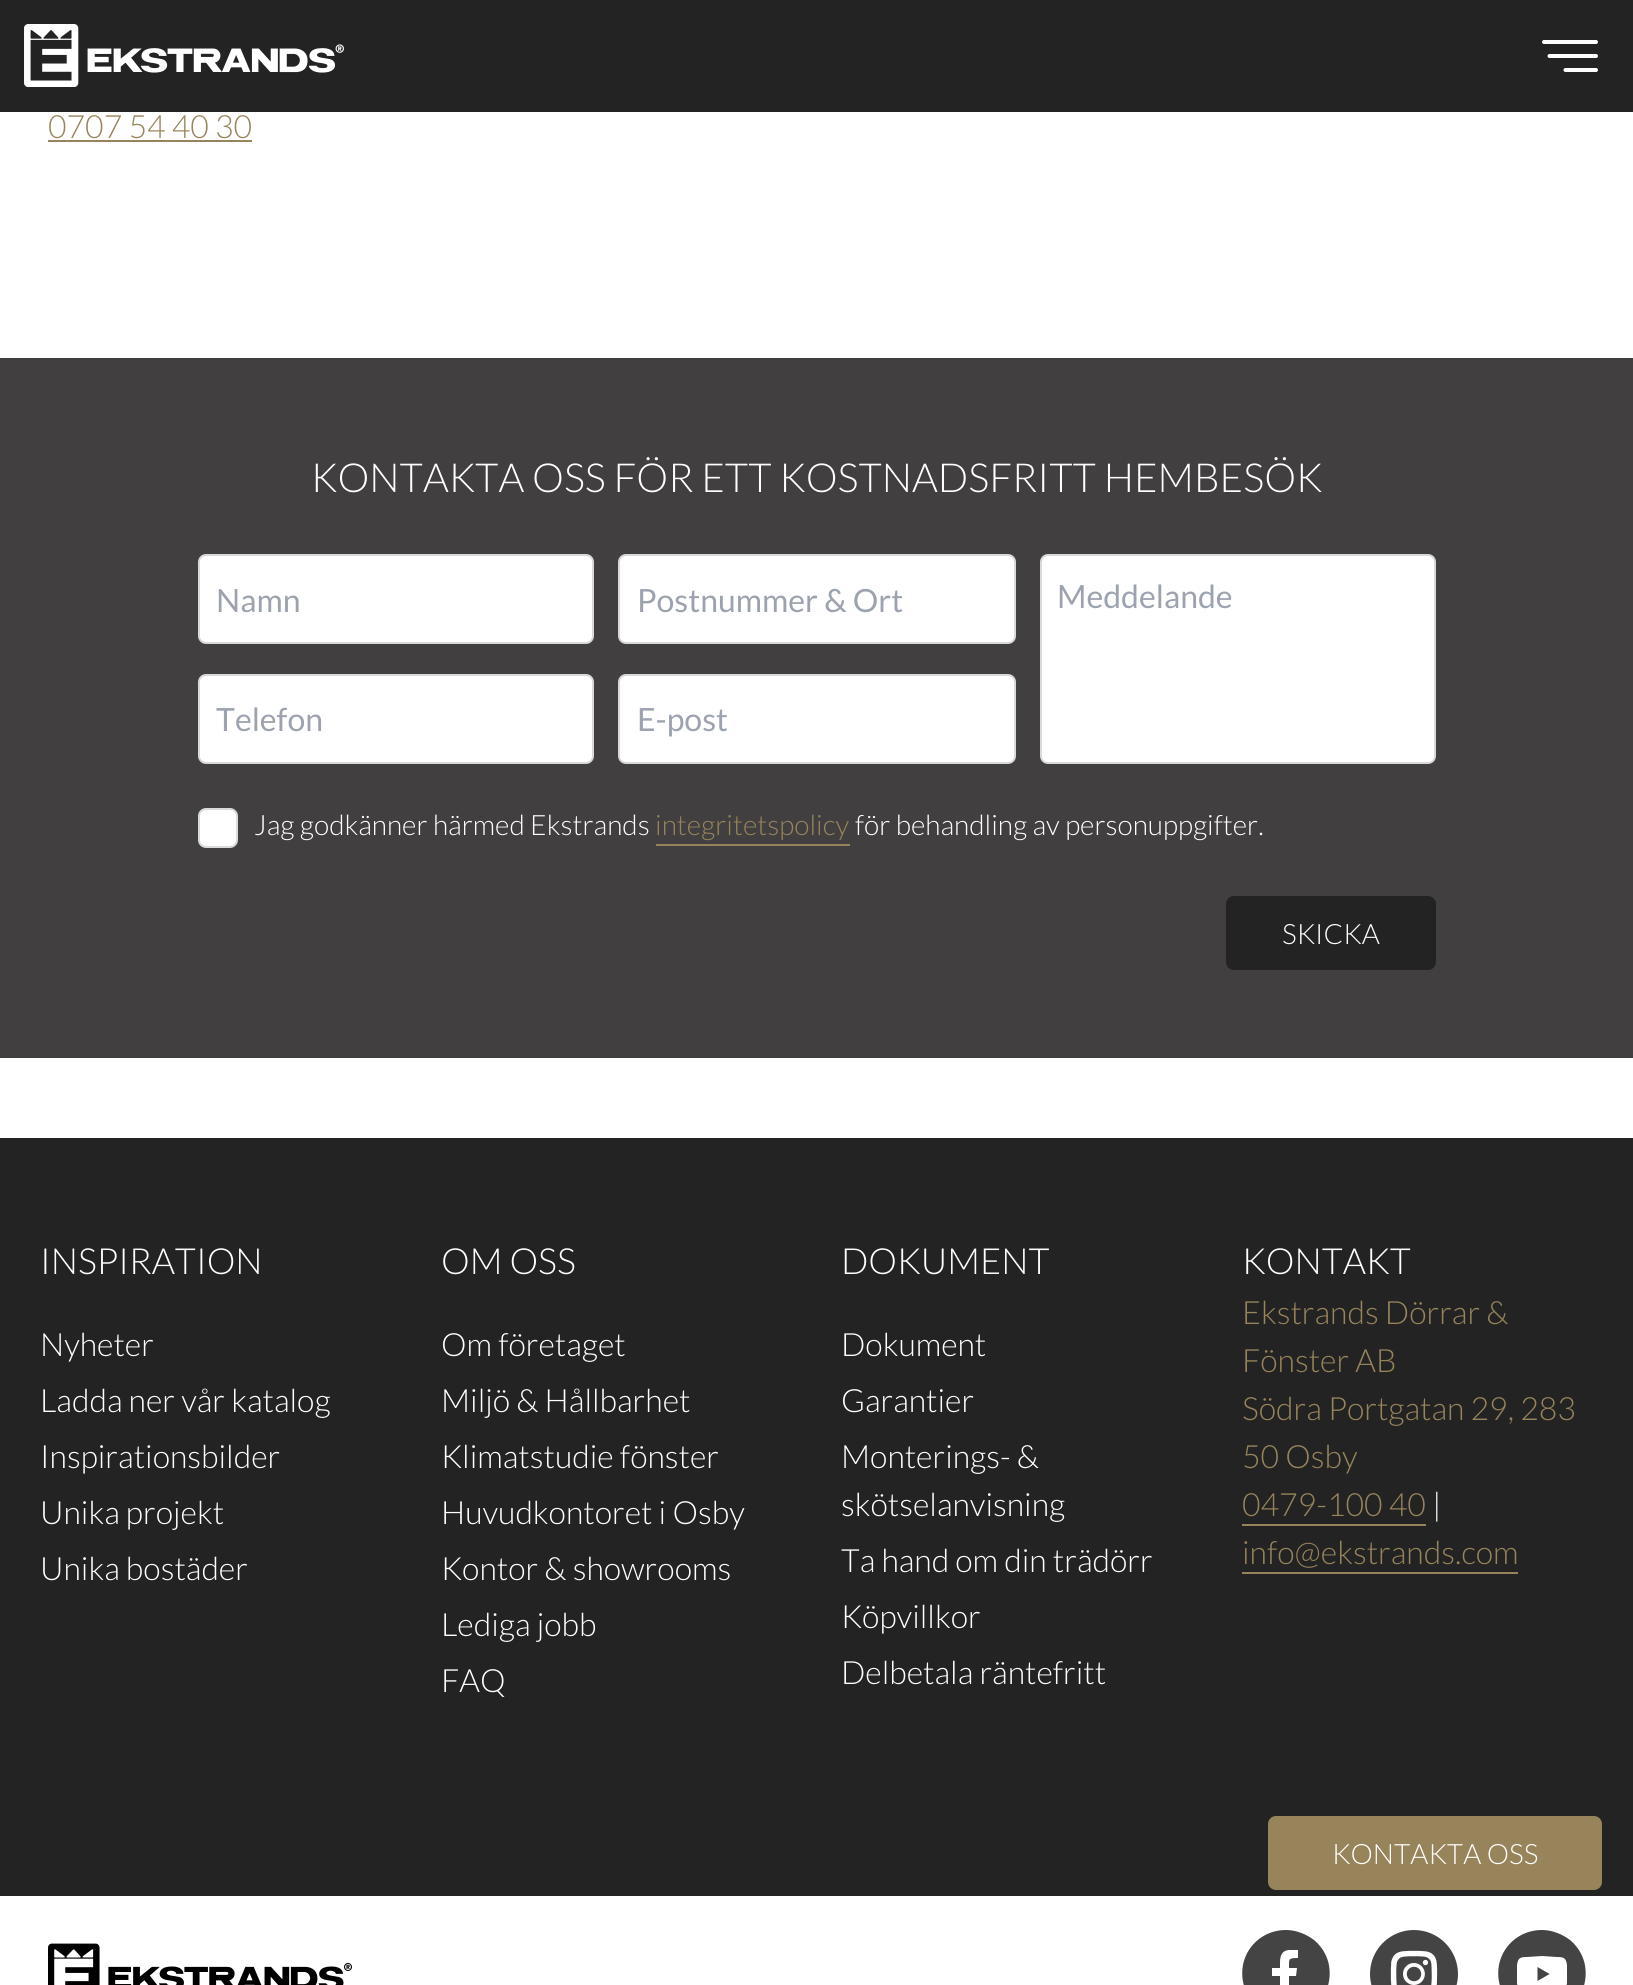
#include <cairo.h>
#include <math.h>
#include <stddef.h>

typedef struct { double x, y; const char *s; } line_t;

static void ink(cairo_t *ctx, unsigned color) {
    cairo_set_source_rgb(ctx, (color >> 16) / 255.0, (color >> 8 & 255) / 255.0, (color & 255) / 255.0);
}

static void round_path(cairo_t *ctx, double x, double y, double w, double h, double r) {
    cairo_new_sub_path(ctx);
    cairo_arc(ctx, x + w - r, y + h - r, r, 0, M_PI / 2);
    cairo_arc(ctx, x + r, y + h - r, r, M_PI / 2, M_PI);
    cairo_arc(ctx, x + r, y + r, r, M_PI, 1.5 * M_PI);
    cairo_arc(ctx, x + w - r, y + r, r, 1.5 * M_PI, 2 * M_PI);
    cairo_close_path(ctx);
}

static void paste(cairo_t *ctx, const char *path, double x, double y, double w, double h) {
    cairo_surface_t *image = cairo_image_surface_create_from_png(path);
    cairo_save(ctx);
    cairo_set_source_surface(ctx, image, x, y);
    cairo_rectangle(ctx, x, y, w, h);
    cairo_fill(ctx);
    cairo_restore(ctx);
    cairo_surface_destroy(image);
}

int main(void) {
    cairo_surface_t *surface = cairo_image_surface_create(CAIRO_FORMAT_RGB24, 1633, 1985);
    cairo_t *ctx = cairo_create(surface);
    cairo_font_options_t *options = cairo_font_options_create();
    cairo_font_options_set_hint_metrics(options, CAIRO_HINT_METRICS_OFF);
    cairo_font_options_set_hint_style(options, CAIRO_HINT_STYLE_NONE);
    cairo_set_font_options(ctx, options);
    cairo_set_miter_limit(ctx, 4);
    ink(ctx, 0xFFFFFF);
    cairo_paint(ctx);
    ink(ctx, 0x232323);
    cairo_rectangle(ctx, 0, 0, 1633, 112);
    cairo_fill(ctx);
    paste(ctx, "media/1.png", 24, 24, 320, 63);
    cairo_new_path(ctx);
    cairo_move_to(ctx, 1596, 42);
    cairo_line_to(ctx, 1544, 42);
    cairo_move_to(ctx, 1596, 56);
    cairo_line_to(ctx, 1549.5, 56);
    cairo_move_to(ctx, 1596, 70);
    cairo_line_to(ctx, 1565.5, 70);
    ink(ctx, 0xFFFFFF);
    cairo_set_line_width(ctx, 4);
    cairo_set_line_cap(ctx, CAIRO_LINE_CAP_ROUND);
    cairo_stroke(ctx);
    cairo_select_font_face(ctx, "Lato Light", CAIRO_FONT_SLANT_NORMAL, CAIRO_FONT_WEIGHT_NORMAL);
    cairo_set_font_size(ctx, 32);
    ink(ctx, 0x97845B);
    cairo_move_to(ctx, 48, 138);
    cairo_show_text(ctx, "0707 54 40 30");
    cairo_rectangle(ctx, 48, 140, 204, 2);
    cairo_fill(ctx);
    ink(ctx, 0x413F40);
    cairo_rectangle(ctx, 0, 358, 1633, 700);
    cairo_fill(ctx);
    cairo_set_font_size(ctx, 40);
    ink(ctx, 0xFFFFFF);
    cairo_move_to(ctx, 311, 492);
    cairo_show_text(ctx, "KONTAKTA OSS FÖR ETT KOSTNADSFRITT HEMBESÖK");
    round_path(ctx, 199, 555, 394, 88, 7);
    cairo_fill_preserve(ctx);
    ink(ctx, 0xD9D9D9);
    cairo_set_line_width(ctx, 2);
    cairo_set_line_cap(ctx, CAIRO_LINE_CAP_BUTT);
    cairo_stroke(ctx);
    cairo_select_font_face(ctx, "Lato", CAIRO_FONT_SLANT_NORMAL, CAIRO_FONT_WEIGHT_NORMAL);
    cairo_set_font_size(ctx, 32);
    ink(ctx, 0x9CA3AF);
    cairo_move_to(ctx, 216, 612);
    cairo_show_text(ctx, "Namn");
    ink(ctx, 0xFFFFFF);
    round_path(ctx, 199, 675, 394, 88, 7);
    cairo_fill_preserve(ctx);
    ink(ctx, 0xD9D9D9);
    cairo_stroke(ctx);
    ink(ctx, 0x9CA3AF);
    cairo_move_to(ctx, 216, 731);
    cairo_show_text(ctx, "Telefon");
    ink(ctx, 0xFFFFFF);
    round_path(ctx, 619, 555, 396, 88, 7);
    cairo_fill_preserve(ctx);
    ink(ctx, 0xD9D9D9);
    cairo_stroke(ctx);
    ink(ctx, 0x9CA3AF);
    cairo_move_to(ctx, 637, 612);
    cairo_show_text(ctx, "Postnummer & Ort");
    ink(ctx, 0xFFFFFF);
    round_path(ctx, 619, 675, 396, 88, 7);
    cairo_fill_preserve(ctx);
    ink(ctx, 0xD9D9D9);
    cairo_stroke(ctx);
    ink(ctx, 0x9CA3AF);
    cairo_move_to(ctx, 637, 731);
    cairo_show_text(ctx, "E-post");
    ink(ctx, 0xFFFFFF);
    round_path(ctx, 1041, 555, 394, 208, 7);
    cairo_fill_preserve(ctx);
    ink(ctx, 0xD9D9D9);
    cairo_stroke(ctx);
    ink(ctx, 0x9CA3AF);
    cairo_move_to(ctx, 1057, 608);
    cairo_show_text(ctx, "Meddelande");
    ink(ctx, 0xFFFFFF);
    round_path(ctx, 199, 809, 38, 38, 7);
    cairo_fill_preserve(ctx);
    ink(ctx, 0xD9D9D9);
    cairo_stroke(ctx);
    cairo_select_font_face(ctx, "Lato Light", CAIRO_FONT_SLANT_NORMAL, CAIRO_FONT_WEIGHT_NORMAL);
    cairo_set_font_size(ctx, 28);
    ink(ctx, 0xFFFFFF);
    cairo_move_to(ctx, 254, 835);
    cairo_show_text(ctx, "Jag godkänner härmed Ekstrands");
    ink(ctx, 0x97845B);
    cairo_move_to(ctx, 655, 835);
    cairo_show_text(ctx, "integritetspolicy");
    cairo_rectangle(ctx, 656, 844, 194, 2);
    cairo_fill(ctx);
    ink(ctx, 0xFFFFFF);
    cairo_move_to(ctx, 855, 835);
    cairo_show_text(ctx, "för behandling av personuppgifter.");
    ink(ctx, 0x232323);
    round_path(ctx, 1226, 896, 210, 74, 8);
    cairo_fill(ctx);
    ink(ctx, 0xFFFFFF);
    cairo_move_to(ctx, 1282, 944);
    cairo_show_text(ctx, "SKICKA");
    ink(ctx, 0x232323);
    cairo_rectangle(ctx, 0, 1138, 1633, 758);
    cairo_fill(ctx);
    cairo_set_font_size(ctx, 36);
    ink(ctx, 0xFFFFFF);
    cairo_move_to(ctx, 40, 1274);
    cairo_show_text(ctx, "INSPIRATION");
    cairo_set_font_size(ctx, 32);
    {
        static const line_t items[] = {
            {40, 1356, "Nyheter"},
            {40, 1412, "Ladda ner vår katalog"},
            {40, 1468, "Inspirationsbilder"},
            {40, 1524, "Unika projekt"},
            {40, 1580, "Unika bostäder"},
        };
        for (size_t i = 0; i < sizeof items / sizeof *items; i++) {
            cairo_move_to(ctx, items[i].x, items[i].y);
            cairo_show_text(ctx, items[i].s);
        }
    }
    cairo_set_font_size(ctx, 36);
    cairo_move_to(ctx, 441, 1274);
    cairo_show_text(ctx, "OM OSS");
    cairo_set_font_size(ctx, 32);
    {
        static const line_t items[] = {
            {441, 1356, "Om företaget"},
            {441, 1412, "Miljö & Hållbarhet"},
            {441, 1468, "Klimatstudie fönster"},
            {441, 1524, "Huvudkontoret i Osby"},
            {441, 1580, "Kontor & showrooms"},
            {441, 1636, "Lediga jobb"},
            {441, 1692, "FAQ"},
        };
        for (size_t i = 0; i < sizeof items / sizeof *items; i++) {
            cairo_move_to(ctx, items[i].x, items[i].y);
            cairo_show_text(ctx, items[i].s);
        }
    }
    cairo_set_font_size(ctx, 36);
    cairo_move_to(ctx, 841, 1274);
    cairo_show_text(ctx, "DOKUMENT");
    cairo_set_font_size(ctx, 32);
    {
        static const line_t items[] = {
            {841, 1356, "Dokument"},
            {841, 1412, "Garantier"},
            {841, 1468, "Monterings- &"},
            {841, 1516, "skötselanvisning"},
            {841, 1572, "Ta hand om din trädörr"},
            {841, 1628, "Köpvillkor"},
            {841, 1684, "Delbetala räntefritt"},
        };
        for (size_t i = 0; i < sizeof items / sizeof *items; i++) {
            cairo_move_to(ctx, items[i].x, items[i].y);
            cairo_show_text(ctx, items[i].s);
        }
    }
    cairo_set_font_size(ctx, 36);
    cairo_move_to(ctx, 1242, 1274);
    cairo_show_text(ctx, "KONTAKT");
    cairo_set_font_size(ctx, 32);
    ink(ctx, 0x97845B);
    {
        static const line_t items[] = {
            {1242, 1324, "Ekstrands Dörrar &"},
            {1242, 1372, "Fönster AB"},
            {1242, 1420, "Södra Portgatan 29, 283"},
            {1242, 1468, "50 Osby"},
            {1242, 1516, "0479-100 40"},
        };
        for (size_t i = 0; i < sizeof items / sizeof *items; i++) {
            cairo_move_to(ctx, items[i].x, items[i].y);
            cairo_show_text(ctx, items[i].s);
        }
    }
    cairo_rectangle(ctx, 1242, 1524, 184, 2);
    cairo_fill(ctx);
    ink(ctx, 0xFFFFFF);
    cairo_move_to(ctx, 1432, 1516);
    cairo_show_text(ctx, "|");
    ink(ctx, 0x97845B);
    cairo_move_to(ctx, 1242, 1564);
    cairo_show_text(ctx, "info@ekstrands.com");
    cairo_rectangle(ctx, 1242, 1572, 276, 2);
    cairo_fill(ctx);
    paste(ctx, "media/2.png", 48, 1943, 304, 42);
    ink(ctx, 0x444444);
    cairo_new_path(ctx);
    cairo_move_to(ctx, 1286, 1930);
    cairo_curve_to(ctx, 1276, 1930, 1267, 1933, 1259, 1939);
    cairo_curve_to(ctx, 1226, 1965, 1245, 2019, 1287, 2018);
    cairo_curve_to(ctx, 1327, 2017, 1345, 1966, 1314, 1940);
    cairo_curve_to(ctx, 1306, 1934, 1296, 1930, 1286, 1930);
    cairo_close_path(ctx);
    cairo_move_to(ctx, 1298, 1958);
    cairo_curve_to(ctx, 1288, 1958, 1289, 1959, 1289, 1968);
    cairo_line_to(ctx, 1297, 1968);
    cairo_line_to(ctx, 1296, 1976);
    cairo_line_to(ctx, 1289, 1976);
    cairo_line_to(ctx, 1289, 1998);
    cairo_line_to(ctx, 1280, 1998);
    cairo_line_to(ctx, 1280, 1976);
    cairo_line_to(ctx, 1272, 1976);
    cairo_line_to(ctx, 1272, 1968);
    cairo_line_to(ctx, 1280, 1968);
    cairo_curve_to(ctx, 1280, 1960, 1279, 1951, 1289, 1950);
    cairo_line_to(ctx, 1298, 1950);
    cairo_close_path(ctx);
    cairo_fill(ctx);
    paste(ctx, "media/3.png", 1370, 1930, 88, 55);
    cairo_new_path(ctx);
    cairo_move_to(ctx, 1542, 1930);
    cairo_curve_to(ctx, 1532, 1930, 1523, 1933, 1515, 1939);
    cairo_curve_to(ctx, 1482, 1965, 1501, 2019, 1543, 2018);
    cairo_curve_to(ctx, 1583, 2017, 1601, 1966, 1570, 1940);
    cairo_curve_to(ctx, 1562, 1934, 1552, 1930, 1542, 1930);
    cairo_close_path(ctx);
    cairo_move_to(ctx, 1567, 1974);
    cairo_line_to(ctx, 1567, 1983);
    cairo_curve_to(ctx, 1566, 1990, 1564, 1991, 1557, 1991);
    cairo_line_to(ctx, 1542, 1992);
    cairo_line_to(ctx, 1527, 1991);
    cairo_curve_to(ctx, 1520, 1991, 1518, 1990, 1517, 1983);
    cairo_line_to(ctx, 1517, 1974);
    cairo_line_to(ctx, 1517, 1965);
    cairo_curve_to(ctx, 1518, 1958, 1520, 1957, 1527, 1957);
    cairo_line_to(ctx, 1542, 1956);
    cairo_line_to(ctx, 1557, 1957);
    cairo_curve_to(ctx, 1564, 1957, 1566, 1958, 1567, 1965);
    cairo_close_path(ctx);
    cairo_fill(ctx);
    cairo_new_path(ctx);
    cairo_move_to(ctx, 1537.5, 1981);
    cairo_line_to(ctx, 1549.5, 1974);
    cairo_line_to(ctx, 1537.5, 1967);
    cairo_close_path(ctx);
    cairo_fill(ctx);
    ink(ctx, 0x97845B);
    round_path(ctx, 1268, 1816, 334, 74, 8);
    cairo_fill(ctx);
    cairo_set_font_size(ctx, 28);
    ink(ctx, 0xFFFFFF);
    cairo_move_to(ctx, 1332, 1864);
    cairo_show_text(ctx, "KONTAKTA OSS");
    cairo_surface_write_to_png(surface, "image.png");
    cairo_font_options_destroy(options);
    cairo_destroy(ctx);
    cairo_surface_destroy(surface);
    return 0;
}
